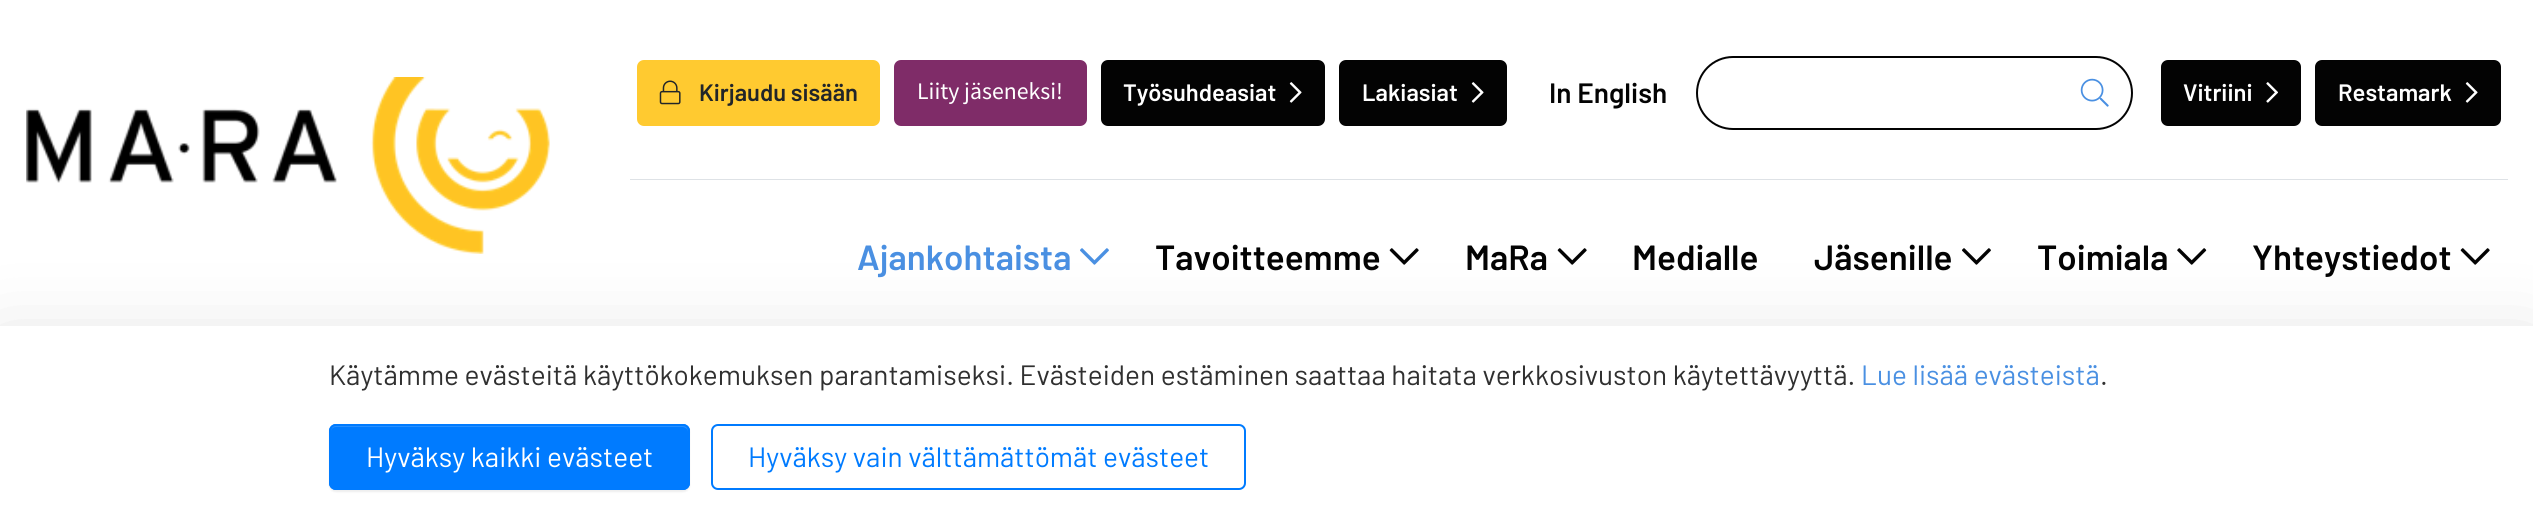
#include <cairo.h>
#include <math.h>
#include <stddef.h>


static void ink(cairo_t *ctx, unsigned color) {
    cairo_set_source_rgb(ctx, (color >> 16) / 255.0, (color >> 8 & 255) / 255.0, (color & 255) / 255.0);
}

static void round_path(cairo_t *ctx, double x, double y, double w, double h, double r) {
    cairo_new_sub_path(ctx);
    cairo_arc(ctx, x + w - r, y + h - r, r, 0, M_PI / 2);
    cairo_arc(ctx, x + r, y + h - r, r, M_PI / 2, M_PI);
    cairo_arc(ctx, x + r, y + r, r, M_PI, 1.5 * M_PI);
    cairo_arc(ctx, x + w - r, y + r, r, 1.5 * M_PI, 2 * M_PI);
    cairo_close_path(ctx);
}

static void blur_box(cairo_t *ctx, double x, double y, double w, double h, double r, double blur, double alpha) {
    cairo_push_group_with_content(ctx, CAIRO_CONTENT_ALPHA);
    cairo_set_operator(ctx, CAIRO_OPERATOR_SOURCE);
    for (int i = 15; i >= -15 && fmin(w, h) + blur * i / 3 > 0; i -= 2) {
        double e = blur * i / 6;
        cairo_set_source_rgba(ctx, 0, 0, 0, alpha * erfc((i - 1) / 8.5) / 2);
        round_path(ctx, x - e, y - e, w + 2 * e, h + 2 * e, fmax(0, fmin(r + e + blur * .6, fmin(w, h) / 2 + e)));
        cairo_fill(ctx);
    }
    cairo_pattern_t *soft = cairo_pop_group(ctx);
    cairo_mask(ctx, soft);
    cairo_pattern_destroy(soft);
}

static void paste(cairo_t *ctx, const char *path, double x, double y, double w, double h) {
    cairo_surface_t *image = cairo_image_surface_create_from_png(path);
    cairo_save(ctx);
    cairo_set_source_surface(ctx, image, x, y);
    cairo_rectangle(ctx, x, y, w, h);
    cairo_fill(ctx);
    cairo_restore(ctx);
    cairo_surface_destroy(image);
}

int main(void) {
    cairo_surface_t *surface = cairo_image_surface_create(CAIRO_FORMAT_RGB24, 2533, 531);
    cairo_t *ctx = cairo_create(surface);
    cairo_font_options_t *options = cairo_font_options_create();
    cairo_font_options_set_hint_metrics(options, CAIRO_HINT_METRICS_OFF);
    cairo_font_options_set_hint_style(options, CAIRO_HINT_STYLE_NONE);
    cairo_set_font_options(ctx, options);
    cairo_set_miter_limit(ctx, 4);
    ink(ctx, 0xFFFFFF);
    cairo_paint(ctx);
    paste(ctx, "media/1.png", 26, 77, 524, 177);
    ink(ctx, 0xDEE2E6);
    cairo_rectangle(ctx, 630, 179, 1878, 1);
    cairo_fill(ctx);
    ink(ctx, 0xFFCA30);
    round_path(ctx, 637, 60, 243, 66, 7);
    cairo_fill(ctx);
    paste(ctx, "media/2.png", 659, 80, 22, 25);
    cairo_select_font_face(ctx, "Barlow SemiBold", CAIRO_FONT_SLANT_NORMAL, CAIRO_FONT_WEIGHT_NORMAL);
    cairo_set_font_size(ctx, 23.75);
    ink(ctx, 0x212529);
    cairo_move_to(ctx, 699, 101);
    cairo_show_text(ctx, "Kirjaudu sisään");
    ink(ctx, 0x7F2C68);
    round_path(ctx, 894, 60, 193, 66, 7);
    cairo_fill(ctx);
    cairo_select_font_face(ctx, "Source Sans Pro", CAIRO_FONT_SLANT_NORMAL, CAIRO_FONT_WEIGHT_NORMAL);
    ink(ctx, 0xFFFFFF);
    cairo_move_to(ctx, 917, 99);
    cairo_show_text(ctx, "Liity jäseneksi!");
    ink(ctx, 0x030303);
    round_path(ctx, 1102, 61, 222, 64, 6);
    cairo_fill_preserve(ctx);
    cairo_stroke(ctx);
    cairo_select_font_face(ctx, "Barlow SemiBold", CAIRO_FONT_SLANT_NORMAL, CAIRO_FONT_WEIGHT_NORMAL);
    ink(ctx, 0xFFFFFF);
    cairo_move_to(ctx, 1123, 101);
    cairo_show_text(ctx, "Työsuhdeasiat");
    paste(ctx, "media/3.png", 1289, 82, 13, 21);
    ink(ctx, 0x030303);
    round_path(ctx, 1340, 61, 166, 64, 6);
    cairo_fill_preserve(ctx);
    cairo_stroke(ctx);
    ink(ctx, 0xFFFFFF);
    cairo_move_to(ctx, 1362, 101);
    cairo_show_text(ctx, "Lakiasiat");
    paste(ctx, "media/3.png", 1471, 82, 13, 21);
    cairo_set_font_size(ctx, 28);
    ink(ctx, 0x030303);
    cairo_move_to(ctx, 1549, 103);
    cairo_show_text(ctx, "In English");
    round_path(ctx, 1697, 57, 435, 72, 36);
    cairo_stroke(ctx);
    paste(ctx, "media/4.png", 2080, 78, 29, 29);
    round_path(ctx, 2162, 61, 138, 64, 6);
    cairo_fill_preserve(ctx);
    cairo_stroke(ctx);
    cairo_set_font_size(ctx, 23.75);
    ink(ctx, 0xFFFFFF);
    cairo_move_to(ctx, 2183, 101);
    cairo_show_text(ctx, "Vitriini");
    paste(ctx, "media/5.png", 2266, 82, 12, 21);
    ink(ctx, 0x030303);
    round_path(ctx, 2316, 61, 184, 64, 6);
    cairo_fill_preserve(ctx);
    cairo_stroke(ctx);
    ink(ctx, 0xFFFFFF);
    cairo_move_to(ctx, 2338, 101);
    cairo_show_text(ctx, "Restamark");
    paste(ctx, "media/3.png", 2465, 82, 13, 21);
    cairo_set_font_size(ctx, 35);
    ink(ctx, 0x4A90E2);
    cairo_move_to(ctx, 857, 270);
    cairo_show_text(ctx, "Ajankohtaista");
    paste(ctx, "media/6.png", 1080, 248, 29, 17);
    ink(ctx, 0x030303);
    cairo_move_to(ctx, 1155, 270);
    cairo_show_text(ctx, "Tavoitteemme");
    paste(ctx, "media/7.png", 1389, 248, 30, 17);
    cairo_move_to(ctx, 1465, 270);
    cairo_show_text(ctx, "MaRa");
    paste(ctx, "media/7.png", 1557, 248, 30, 17);
    cairo_move_to(ctx, 1632, 270);
    cairo_show_text(ctx, "Medialle");
    cairo_move_to(ctx, 1814, 270);
    cairo_show_text(ctx, "Jäsenille");
    paste(ctx, "media/8.png", 1962, 248, 29, 17);
    cairo_move_to(ctx, 2037, 270);
    cairo_show_text(ctx, "Toimiala");
    paste(ctx, "media/9.png", 2177, 248, 30, 17);
    cairo_move_to(ctx, 2252, 270);
    cairo_show_text(ctx, "Yhteystiedot");
    paste(ctx, "media/7.png", 2460, 248, 30, 17);
    ink(ctx, 0x000000);
    blur_box(ctx, 0, 354, 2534, 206, 0, 42, 0.18);
    ink(ctx, 0xFFFFFF);
    cairo_rectangle(ctx, 0, 326, 2533, 205);
    cairo_fill(ctx);
    cairo_select_font_face(ctx, "Barlow", CAIRO_FONT_SLANT_NORMAL, CAIRO_FONT_WEIGHT_NORMAL);
    cairo_set_font_size(ctx, 28);
    ink(ctx, 0x303030);
    cairo_move_to(ctx, 329, 385);
    cairo_show_text(ctx, "Käytämme evästeitä käyttökokemuksen parantamiseksi. Evästeiden estäminen saattaa haitata verkkosivuston käytettävyyttä.");
    ink(ctx, 0x4A90E2);
    cairo_move_to(ctx, 1861, 385);
    cairo_show_text(ctx, "Lue lisää evästeistä");
    ink(ctx, 0x303030);
    cairo_move_to(ctx, 2100, 385);
    cairo_show_text(ctx, ".");
    ink(ctx, 0x000000);
    blur_box(ctx, 329, 425, 361, 67, 7, 1, 0.07);
    ink(ctx, 0x007BFF);
    round_path(ctx, 329, 424, 361, 66, 7);
    cairo_fill(ctx);
    ink(ctx, 0x268FFF);
    cairo_new_path(ctx);
    cairo_move_to(ctx, 336, 427);
    cairo_line_to(ctx, 682, 427);
    cairo_curve_to(ctx, 685, 427, 688, 429, 688, 432);
    cairo_curve_to(ctx, 688, 429, 687, 425, 683, 425);
    cairo_line_to(ctx, 336, 425);
    cairo_curve_to(ctx, 332, 425, 331, 429, 331, 432);
    cairo_curve_to(ctx, 331, 429, 333, 427, 336, 427);
    cairo_close_path(ctx);
    cairo_fill(ctx);
    round_path(ctx, 330, 425, 359, 64, 6);
    ink(ctx, 0x007BFF);
    cairo_stroke(ctx);
    ink(ctx, 0xFFFFFF);
    cairo_move_to(ctx, 366, 467);
    cairo_show_text(ctx, "Hyväksy kaikki evästeet");
    round_path(ctx, 712, 425, 533, 64, 6);
    ink(ctx, 0x007BFF);
    cairo_stroke(ctx);
    cairo_move_to(ctx, 748, 467);
    cairo_show_text(ctx, "Hyväksy vain välttämättömät evästeet");
    cairo_surface_write_to_png(surface, "image.png");
    cairo_font_options_destroy(options);
    cairo_destroy(ctx);
    cairo_surface_destroy(surface);
    return 0;
}
